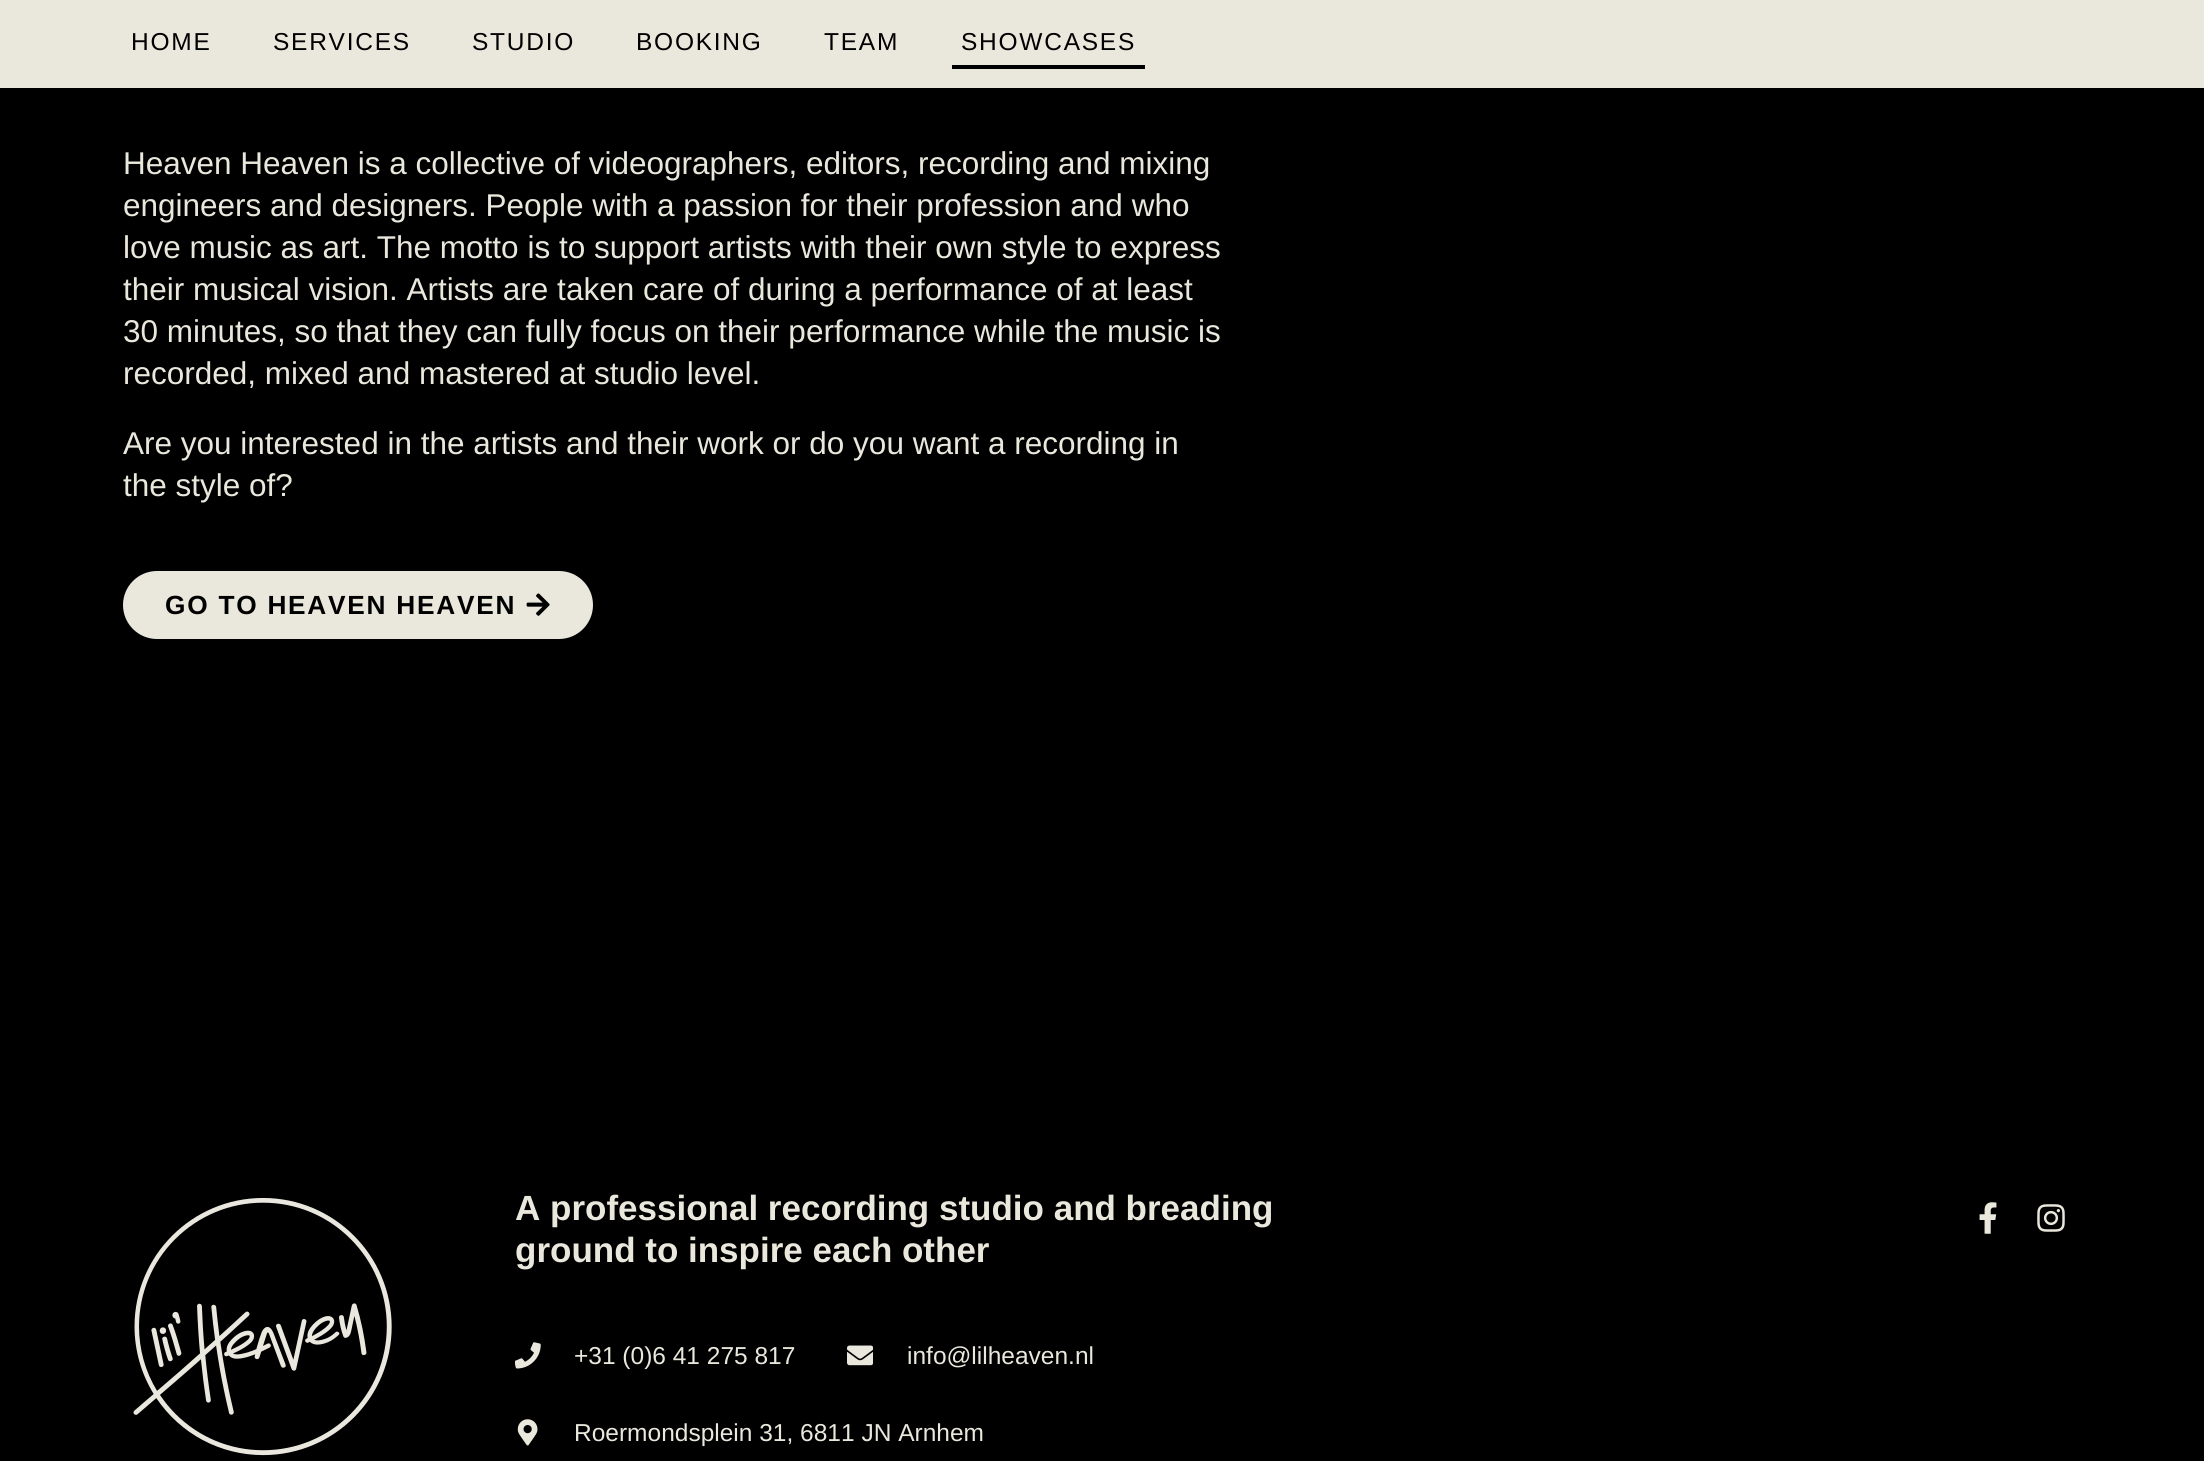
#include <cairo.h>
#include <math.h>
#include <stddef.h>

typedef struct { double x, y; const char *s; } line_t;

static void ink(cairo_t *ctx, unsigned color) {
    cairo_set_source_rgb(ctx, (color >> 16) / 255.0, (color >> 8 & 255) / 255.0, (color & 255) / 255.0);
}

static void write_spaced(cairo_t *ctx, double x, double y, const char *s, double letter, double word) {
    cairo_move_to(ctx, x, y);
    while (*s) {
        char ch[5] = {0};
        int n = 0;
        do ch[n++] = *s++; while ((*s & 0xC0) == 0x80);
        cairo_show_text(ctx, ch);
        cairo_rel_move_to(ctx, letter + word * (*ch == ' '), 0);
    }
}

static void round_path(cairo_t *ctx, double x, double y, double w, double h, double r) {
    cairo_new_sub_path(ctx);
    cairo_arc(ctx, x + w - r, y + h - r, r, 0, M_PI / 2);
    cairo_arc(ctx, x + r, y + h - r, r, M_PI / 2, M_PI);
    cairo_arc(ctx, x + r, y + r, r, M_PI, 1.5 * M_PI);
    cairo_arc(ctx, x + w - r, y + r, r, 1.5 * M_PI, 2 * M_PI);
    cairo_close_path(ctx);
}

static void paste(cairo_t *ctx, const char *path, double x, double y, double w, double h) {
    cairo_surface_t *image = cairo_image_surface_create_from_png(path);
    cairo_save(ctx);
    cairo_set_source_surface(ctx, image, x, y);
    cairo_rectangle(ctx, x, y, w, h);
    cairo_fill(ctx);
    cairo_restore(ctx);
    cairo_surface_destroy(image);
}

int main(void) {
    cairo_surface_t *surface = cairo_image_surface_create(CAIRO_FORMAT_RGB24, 2204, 1461);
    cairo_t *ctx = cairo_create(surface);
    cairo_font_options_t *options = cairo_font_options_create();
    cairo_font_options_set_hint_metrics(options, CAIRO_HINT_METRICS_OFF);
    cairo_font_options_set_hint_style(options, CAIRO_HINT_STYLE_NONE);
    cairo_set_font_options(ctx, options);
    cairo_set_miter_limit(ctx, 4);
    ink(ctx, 0x000000);
    cairo_paint(ctx);
    ink(ctx, 0xEAE8DD);
    cairo_rectangle(ctx, 0, 0, 2204, 88);
    cairo_fill(ctx);
    cairo_select_font_face(ctx, "Liberation Sans", CAIRO_FONT_SLANT_NORMAL, CAIRO_FONT_WEIGHT_NORMAL);
    cairo_set_font_size(ctx, 24.5);
    ink(ctx, 0x000000);
    {
        static const line_t items[] = {
            {131, 50, "HOME"},
            {273, 50, "SERVICES"},
            {472, 50, "STUDIO"},
            {636, 50, "BOOKING"},
            {824, 50, "TEAM"},
        };
        for (size_t i = 0; i < sizeof items / sizeof *items; i++) {
            write_spaced(ctx, items[i].x, items[i].y, items[i].s, 1.75, 0);
        }
    }
    cairo_rectangle(ctx, 952, 65, 193, 4);
    cairo_fill(ctx);
    write_spaced(ctx, 961, 50, "SHOWCASES", 1.75, 0);
    cairo_set_font_size(ctx, 31.5);
    ink(ctx, 0xEAE8DD);
    {
        static const line_t items[] = {
            {123, 174, "Heaven Heaven is a collective of videographers, editors, recording and mixing"},
            {123, 216, "engineers and designers. People with a passion for their profession and who"},
            {123, 258, "love music as art. The motto is to support artists with their own style to express"},
            {123, 300, "their musical vision. Artists are taken care of during a performance of at least"},
            {123, 342, "30 minutes, so that they can fully focus on their performance while the music is"},
            {123, 384, "recorded, mixed and mastered at studio level."},
            {123, 454, "Are you interested in the artists and their work or do you want a recording in"},
            {123, 496, "the style of?"},
        };
        for (size_t i = 0; i < sizeof items / sizeof *items; i++) {
            cairo_move_to(ctx, items[i].x, items[i].y);
            cairo_show_text(ctx, items[i].s);
        }
    }
    round_path(ctx, 123, 571, 470, 68, 34);
    cairo_fill(ctx);
    cairo_select_font_face(ctx, "Liberation Sans", CAIRO_FONT_SLANT_NORMAL, CAIRO_FONT_WEIGHT_BOLD);
    cairo_set_font_size(ctx, 26.25);
    ink(ctx, 0x000000);
    write_spaced(ctx, 165, 614, "GO TO HEAVEN HEAVEN", 1.75, 0);
    paste(ctx, "media/1.png", 526, 593, 24, 23);
    paste(ctx, "media/2.png", 133, 1198, 259, 258);
    cairo_set_font_size(ctx, 35);
    ink(ctx, 0xEAE8DD);
    cairo_move_to(ctx, 515, 1220);
    cairo_show_text(ctx, "A professional recording studio and breading");
    cairo_move_to(ctx, 515, 1262);
    cairo_show_text(ctx, "ground to inspire each other");
    paste(ctx, "media/3.png", 515, 1342, 26, 27);
    cairo_select_font_face(ctx, "Liberation Sans", CAIRO_FONT_SLANT_NORMAL, CAIRO_FONT_WEIGHT_NORMAL);
    cairo_set_font_size(ctx, 24.5);
    cairo_move_to(ctx, 574, 1364);
    cairo_show_text(ctx, "+31 (0)6 41 275 817");
    paste(ctx, "media/4.png", 847, 1345, 26, 21);
    cairo_move_to(ctx, 907, 1364);
    cairo_show_text(ctx, "info@lilheaven.nl");
    paste(ctx, "media/5.png", 517, 1419, 21, 27);
    cairo_move_to(ctx, 574, 1441);
    cairo_show_text(ctx, "Roermondsplein 31, 6811 JN Arnhem");
    paste(ctx, "media/6.png", 1979, 1202, 18, 32);
    paste(ctx, "media/7.png", 2037, 1204, 28, 28);
    cairo_surface_write_to_png(surface, "image.png");
    cairo_font_options_destroy(options);
    cairo_destroy(ctx);
    cairo_surface_destroy(surface);
    return 0;
}
